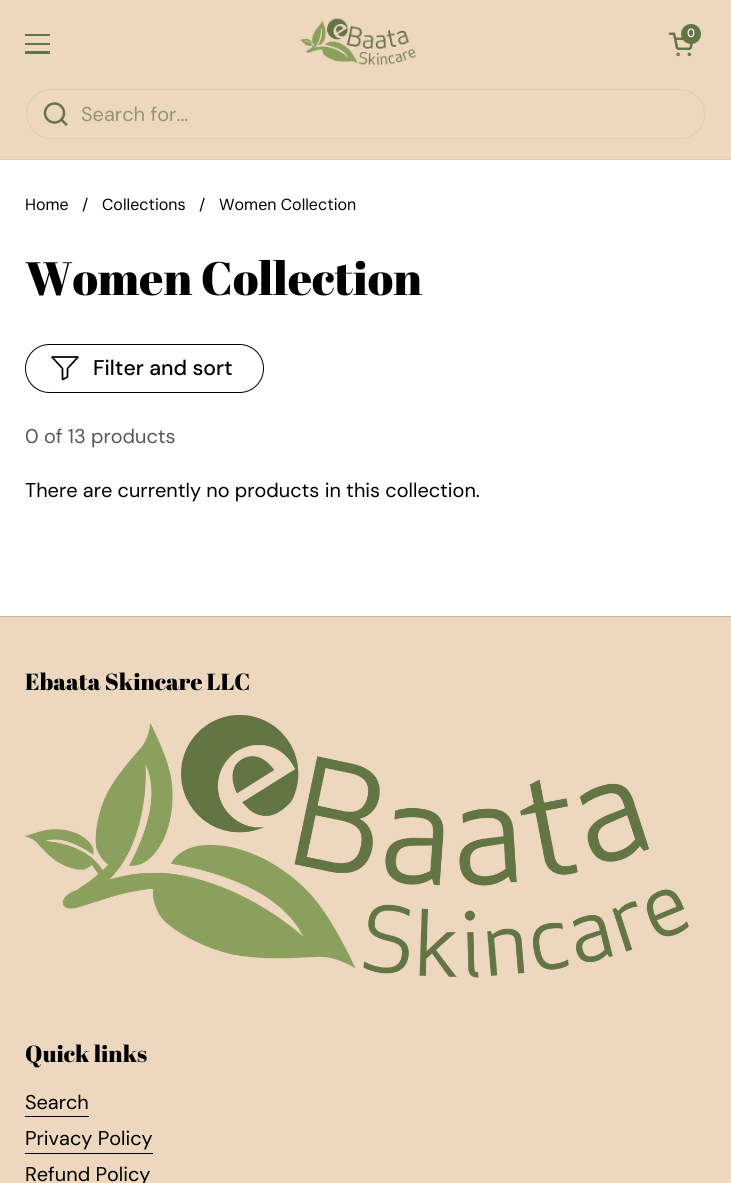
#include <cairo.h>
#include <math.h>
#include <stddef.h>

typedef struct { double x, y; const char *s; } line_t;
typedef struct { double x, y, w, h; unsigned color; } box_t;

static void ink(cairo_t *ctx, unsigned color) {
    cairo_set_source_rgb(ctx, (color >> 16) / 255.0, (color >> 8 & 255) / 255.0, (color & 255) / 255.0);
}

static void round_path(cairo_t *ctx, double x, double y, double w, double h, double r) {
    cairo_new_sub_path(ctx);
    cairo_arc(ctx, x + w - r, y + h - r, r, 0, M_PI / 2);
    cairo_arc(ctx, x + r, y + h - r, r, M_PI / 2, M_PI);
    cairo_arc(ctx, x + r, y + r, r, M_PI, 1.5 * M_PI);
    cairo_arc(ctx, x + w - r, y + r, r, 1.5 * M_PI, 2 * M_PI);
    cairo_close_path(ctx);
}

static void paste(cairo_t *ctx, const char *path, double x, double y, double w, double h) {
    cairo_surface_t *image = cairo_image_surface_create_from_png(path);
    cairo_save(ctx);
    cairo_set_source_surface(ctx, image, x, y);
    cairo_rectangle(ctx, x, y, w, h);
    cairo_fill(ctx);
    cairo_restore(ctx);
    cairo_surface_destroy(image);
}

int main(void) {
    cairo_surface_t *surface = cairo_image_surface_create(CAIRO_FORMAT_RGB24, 731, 1183);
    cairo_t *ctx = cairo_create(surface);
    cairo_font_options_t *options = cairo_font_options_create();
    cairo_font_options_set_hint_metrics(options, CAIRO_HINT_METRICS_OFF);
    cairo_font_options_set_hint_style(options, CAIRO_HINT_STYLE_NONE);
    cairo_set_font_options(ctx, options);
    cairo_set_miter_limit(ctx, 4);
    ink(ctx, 0xFFFFFF);
    cairo_paint(ctx);
    ink(ctx, 0xEDD7BF);
    cairo_rectangle(ctx, 0, 0, 731, 159);
    cairo_fill(ctx);
    paste(ctx, "media/1.png", 300, 18, 117, 48);
    paste(ctx, "media/2.png", 668, 32, 25, 25);
    ink(ctx, 0x637544);
    cairo_arc(ctx, 691, 34, 10, 0, 2 * M_PI);
    cairo_fill(ctx);
    cairo_select_font_face(ctx, "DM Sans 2 Medium", CAIRO_FONT_SLANT_NORMAL, CAIRO_FONT_WEIGHT_NORMAL);
    cairo_set_font_size(ctx, 12);
    ink(ctx, 0xFFFFFF);
    cairo_move_to(ctx, 687, 37);
    cairo_show_text(ctx, "0");
    {
        static const box_t items[] = {
            {25, 34, 25, 2, 0x637544},
            {25, 43, 25, 2, 0x637544},
            {25, 51, 25, 3, 0x637544},
            {0, 159, 731, 1, 0xDFCDB3},
        };
        for (size_t i = 0; i < sizeof items / sizeof *items; i++) {
            ink(ctx, items[i].color);
            cairo_rectangle(ctx, items[i].x, items[i].y, items[i].w, items[i].h);
            cairo_fill(ctx);
        }
    }
    round_path(ctx, 26.5, 89.5, 678, 49, 24.5);
    cairo_set_line_width(ctx, 1);
    cairo_stroke(ctx);
    paste(ctx, "media/3.png", 43, 102, 25, 24);
    cairo_select_font_face(ctx, "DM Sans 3", CAIRO_FONT_SLANT_NORMAL, CAIRO_FONT_WEIGHT_NORMAL);
    cairo_set_font_size(ctx, 20);
    ink(ctx, 0x92966E);
    cairo_move_to(ctx, 81, 121);
    cairo_show_text(ctx, "Search for...");
    cairo_select_font_face(ctx, "DM Sans 2", CAIRO_FONT_SLANT_NORMAL, CAIRO_FONT_WEIGHT_NORMAL);
    cairo_set_font_size(ctx, 16);
    ink(ctx, 0x000000);
    {
        static const line_t items[] = {
            {25, 210, "Home"},
            {82, 210, "/"},
            {102, 210, "Collections"},
            {199, 210, "/"},
            {219, 210, "Women Collection"},
        };
        for (size_t i = 0; i < sizeof items / sizeof *items; i++) {
            cairo_move_to(ctx, items[i].x, items[i].y);
            cairo_show_text(ctx, items[i].s);
        }
    }
    cairo_select_font_face(ctx, "Abril Fatface", CAIRO_FONT_SLANT_NORMAL, CAIRO_FONT_WEIGHT_NORMAL);
    cairo_set_font_size(ctx, 46.75);
    cairo_move_to(ctx, 25, 295);
    cairo_show_text(ctx, "Women Collection");
    round_path(ctx, 25.5, 344.5, 238, 48, 24);
    cairo_stroke(ctx);
    cairo_new_path(ctx);
    cairo_move_to(ctx, 52, 357);
    cairo_line_to(ctx, 78, 357);
    cairo_line_to(ctx, 67.5, 368.5);
    cairo_line_to(ctx, 67.5, 377);
    cairo_line_to(ctx, 62.5, 379.5);
    cairo_line_to(ctx, 62.5, 368.5);
    cairo_close_path(ctx);
    cairo_set_line_width(ctx, 1.7);
    cairo_set_line_cap(ctx, CAIRO_LINE_CAP_ROUND);
    cairo_set_line_join(ctx, CAIRO_LINE_JOIN_ROUND);
    cairo_stroke(ctx);
    cairo_select_font_face(ctx, "DM Sans Medium", CAIRO_FONT_SLANT_NORMAL, CAIRO_FONT_WEIGHT_NORMAL);
    cairo_set_font_size(ctx, 21.25);
    cairo_move_to(ctx, 93, 375);
    cairo_show_text(ctx, "Filter and sort");
    cairo_select_font_face(ctx, "DM Sans", CAIRO_FONT_SLANT_NORMAL, CAIRO_FONT_WEIGHT_NORMAL);
    cairo_set_font_size(ctx, 19.9);
    ink(ctx, 0x575757);
    cairo_move_to(ctx, 25, 443);
    cairo_show_text(ctx, "0 of 13 products");
    ink(ctx, 0x000000);
    cairo_move_to(ctx, 25, 497);
    cairo_show_text(ctx, "There are currently no products in this collection.");
    ink(ctx, 0xEDD7BF);
    cairo_rectangle(ctx, 0, 617, 731, 566);
    cairo_fill(ctx);
    ink(ctx, 0xC9B7A2);
    cairo_rectangle(ctx, 0, 616, 731, 1);
    cairo_fill(ctx);
    cairo_select_font_face(ctx, "Abril Fatface", CAIRO_FONT_SLANT_NORMAL, CAIRO_FONT_WEIGHT_NORMAL);
    cairo_set_font_size(ctx, 23.25);
    ink(ctx, 0x000000);
    cairo_move_to(ctx, 25, 690);
    cairo_show_text(ctx, "Ebaata Skincare LLC");
    paste(ctx, "media/4.png", 25, 715, 664, 263);
    cairo_move_to(ctx, 25, 1062);
    cairo_show_text(ctx, "Quick links");
    cairo_select_font_face(ctx, "DM Sans", CAIRO_FONT_SLANT_NORMAL, CAIRO_FONT_WEIGHT_NORMAL);
    cairo_set_font_size(ctx, 19.9);
    cairo_move_to(ctx, 25, 1109);
    cairo_show_text(ctx, "Search");
    cairo_rectangle(ctx, 25, 1116, 64, 1);
    cairo_fill(ctx);
    cairo_move_to(ctx, 25, 1145);
    cairo_show_text(ctx, "Privacy Policy");
    cairo_rectangle(ctx, 25, 1153, 128, 1);
    cairo_fill(ctx);
    cairo_move_to(ctx, 25, 1181);
    cairo_show_text(ctx, "Refund Policy");
    cairo_surface_write_to_png(surface, "image.png");
    cairo_font_options_destroy(options);
    cairo_destroy(ctx);
    cairo_surface_destroy(surface);
    return 0;
}
